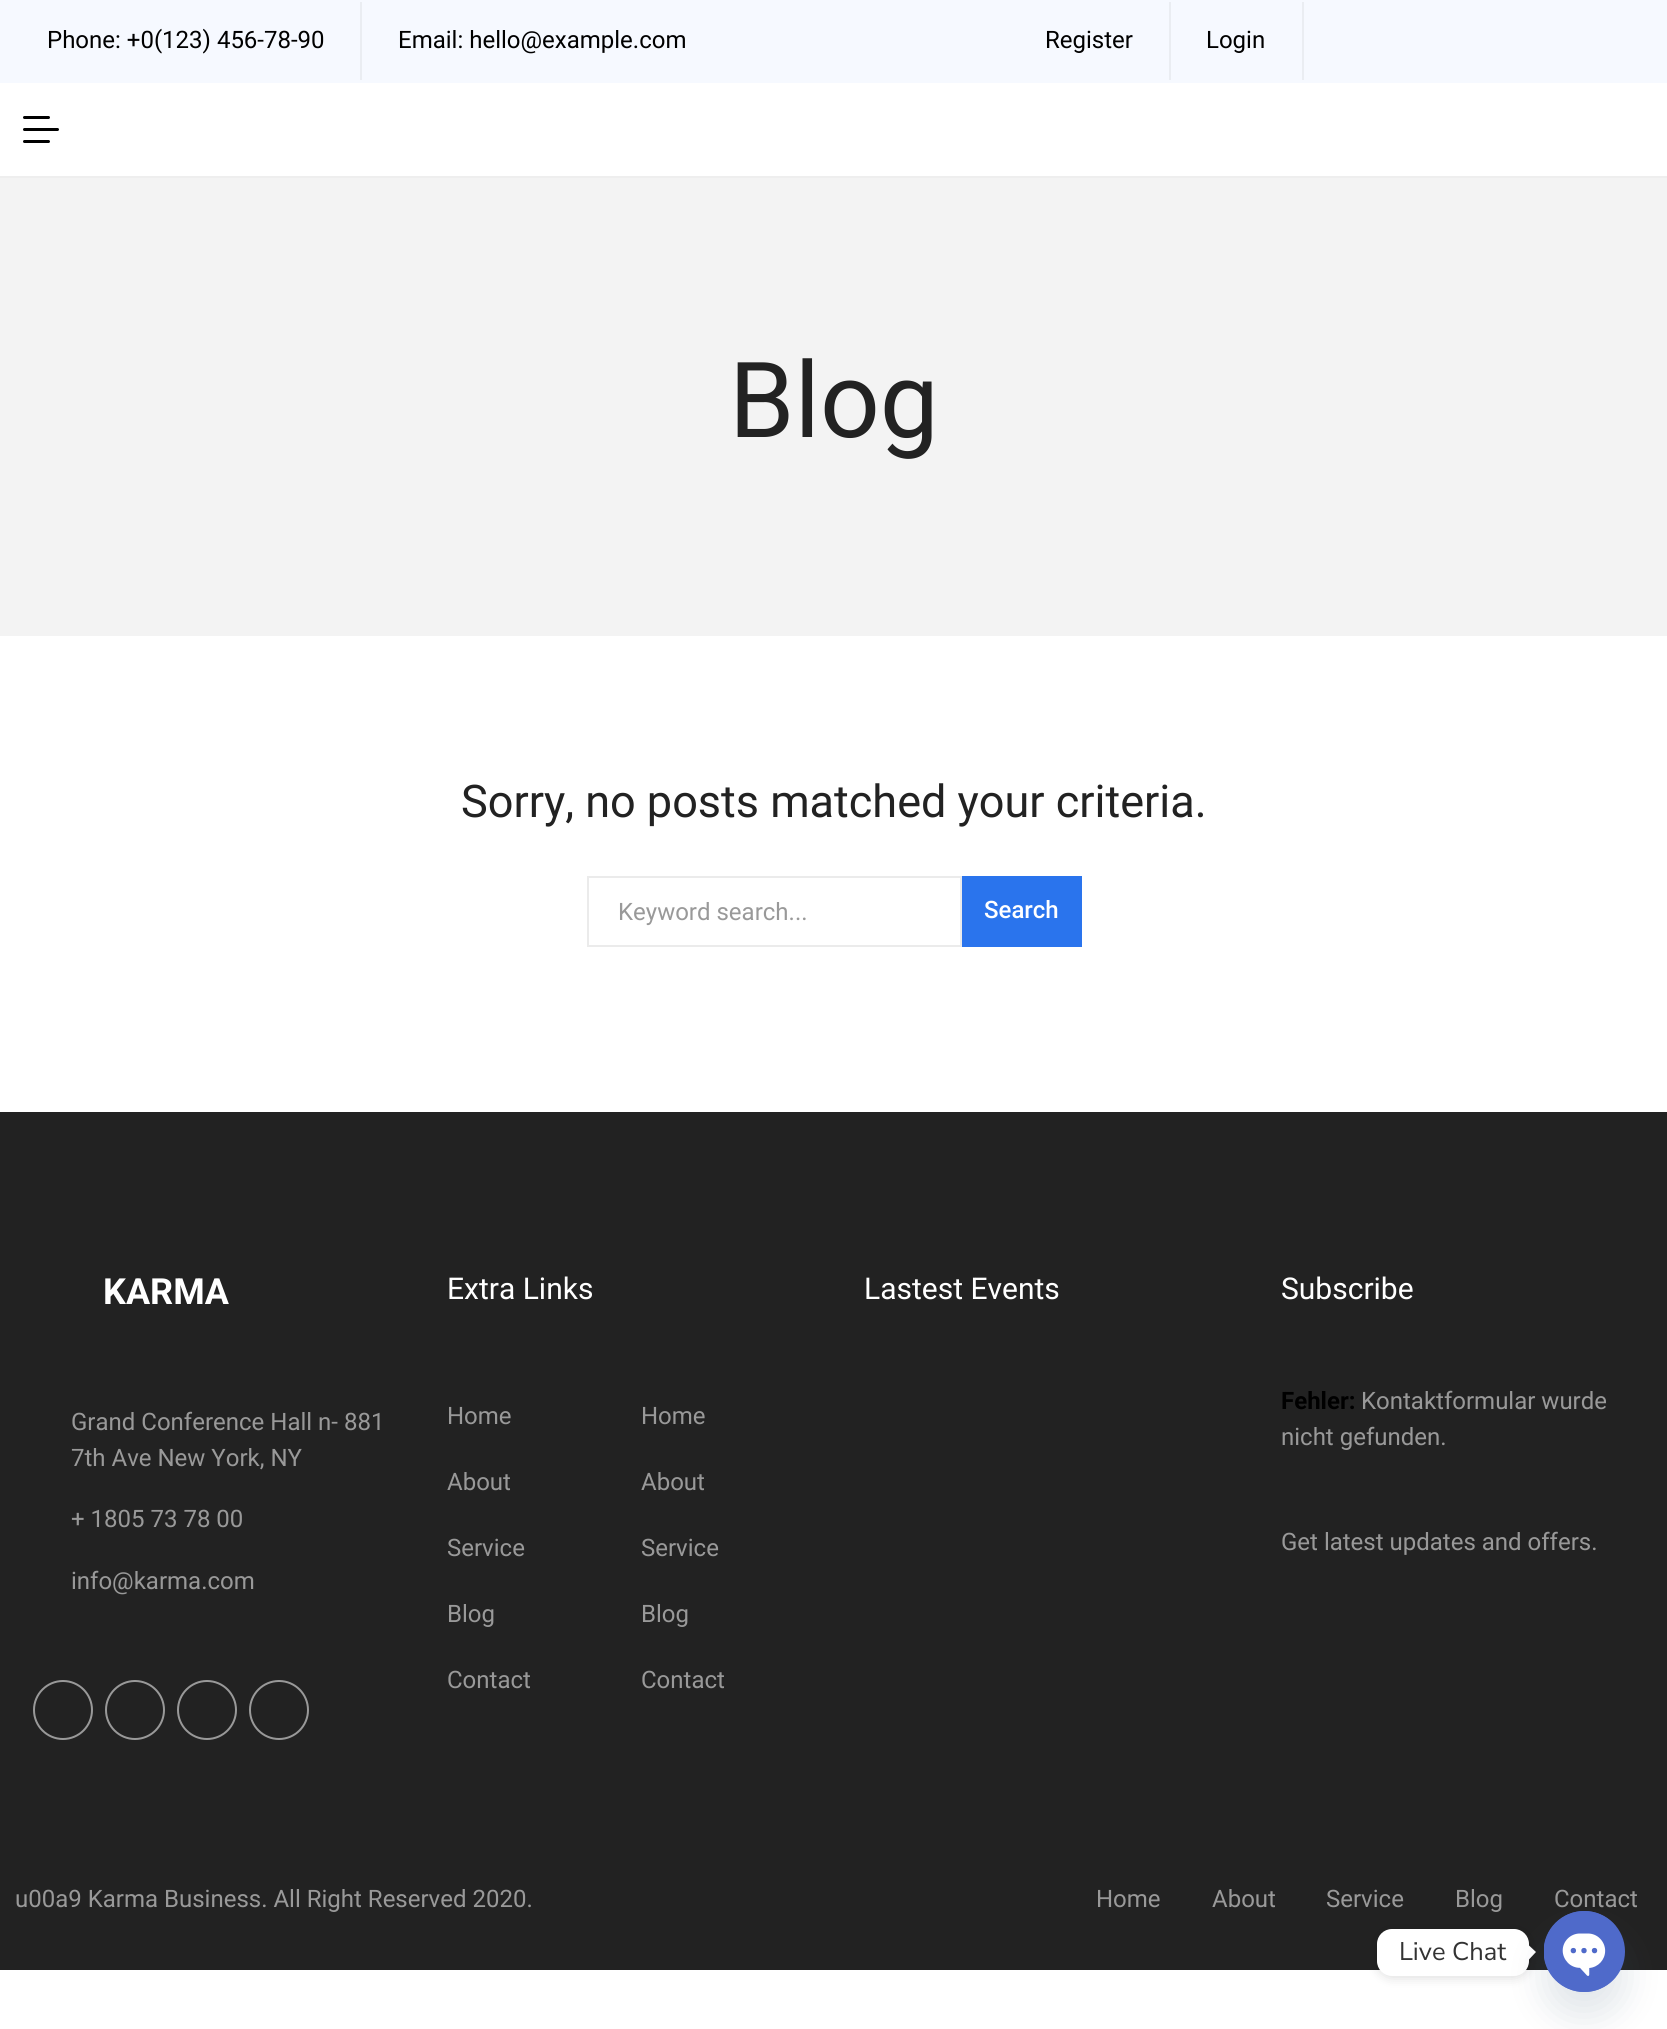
#include <cairo.h>
#include <math.h>
#include <stddef.h>

typedef struct { double x, y; const char *s; } line_t;

static void ink(cairo_t *ctx, unsigned color) {
    cairo_set_source_rgb(ctx, (color >> 16) / 255.0, (color >> 8 & 255) / 255.0, (color & 255) / 255.0);
}

static void round_path(cairo_t *ctx, double x, double y, double w, double h, double r) {
    cairo_new_sub_path(ctx);
    cairo_arc(ctx, x + w - r, y + h - r, r, 0, M_PI / 2);
    cairo_arc(ctx, x + r, y + h - r, r, M_PI / 2, M_PI);
    cairo_arc(ctx, x + r, y + r, r, M_PI, 1.5 * M_PI);
    cairo_arc(ctx, x + w - r, y + r, r, 1.5 * M_PI, 2 * M_PI);
    cairo_close_path(ctx);
}

static void blur_box(cairo_t *ctx, double x, double y, double w, double h, double r, double blur, double alpha) {
    cairo_push_group_with_content(ctx, CAIRO_CONTENT_ALPHA);
    cairo_set_operator(ctx, CAIRO_OPERATOR_SOURCE);
    for (int i = 15; i >= -15 && fmin(w, h) + blur * i / 3 > 0; i -= 2) {
        double e = blur * i / 6;
        cairo_set_source_rgba(ctx, 0, 0, 0, alpha * erfc((i - 1) / 8.5) / 2);
        round_path(ctx, x - e, y - e, w + 2 * e, h + 2 * e, fmax(0, fmin(r + e + blur * .6, fmin(w, h) / 2 + e)));
        cairo_fill(ctx);
    }
    cairo_pattern_t *soft = cairo_pop_group(ctx);
    cairo_mask(ctx, soft);
    cairo_pattern_destroy(soft);
}

static void paste(cairo_t *ctx, const char *path, double x, double y, double w, double h) {
    cairo_surface_t *image = cairo_image_surface_create_from_png(path);
    cairo_save(ctx);
    cairo_set_source_surface(ctx, image, x, y);
    cairo_rectangle(ctx, x, y, w, h);
    cairo_fill(ctx);
    cairo_restore(ctx);
    cairo_surface_destroy(image);
}

int main(void) {
    cairo_surface_t *surface = cairo_image_surface_create(CAIRO_FORMAT_RGB24, 1667, 2029);
    cairo_t *ctx = cairo_create(surface);
    cairo_font_options_t *options = cairo_font_options_create();
    cairo_font_options_set_hint_metrics(options, CAIRO_HINT_METRICS_OFF);
    cairo_font_options_set_hint_style(options, CAIRO_HINT_STYLE_NONE);
    cairo_set_font_options(ctx, options);
    cairo_set_miter_limit(ctx, 4);
    ink(ctx, 0xFFFFFF);
    cairo_paint(ctx);
    ink(ctx, 0xF6F9FF);
    cairo_rectangle(ctx, 0, 0, 1667, 83);
    cairo_fill(ctx);
    ink(ctx, 0xEAEDF2);
    cairo_rectangle(ctx, 360, 2, 2, 78);
    cairo_fill(ctx);
    cairo_select_font_face(ctx, "Roboto", CAIRO_FONT_SLANT_NORMAL, CAIRO_FONT_WEIGHT_NORMAL);
    cairo_set_font_size(ctx, 24);
    ink(ctx, 0x000000);
    cairo_move_to(ctx, 47, 48);
    cairo_show_text(ctx, "Phone: +0(123) 456-78-90");
    cairo_move_to(ctx, 398, 48);
    cairo_show_text(ctx, "Email: hello@example.com");
    ink(ctx, 0xEAEDF2);
    cairo_rectangle(ctx, 1169, 2, 2, 78);
    cairo_fill(ctx);
    ink(ctx, 0x000000);
    cairo_move_to(ctx, 1045, 48);
    cairo_show_text(ctx, "Register");
    ink(ctx, 0xEAEDF2);
    cairo_rectangle(ctx, 1302, 2, 2, 78);
    cairo_fill(ctx);
    ink(ctx, 0x000000);
    cairo_move_to(ctx, 1206, 48);
    cairo_show_text(ctx, "Login");
    ink(ctx, 0xEEEEEE);
    cairo_rectangle(ctx, 0, 176, 1667, 2);
    cairo_fill(ctx);
    ink(ctx, 0x000000);
    round_path(ctx, 23, 128, 36, 3, 1.5);
    cairo_fill(ctx);
    round_path(ctx, 23, 116, 27, 3, 1.5);
    cairo_fill(ctx);
    round_path(ctx, 23, 140, 27, 3, 1.5);
    cairo_fill(ctx);
    ink(ctx, 0xF3F3F3);
    cairo_rectangle(ctx, 0, 178, 1667, 458);
    cairo_fill(ctx);
    cairo_set_font_size(ctx, 105);
    ink(ctx, 0x222222);
    cairo_move_to(ctx, 729, 437);
    cairo_show_text(ctx, "Blog");
    cairo_set_font_size(ctx, 45);
    cairo_move_to(ctx, 461, 817);
    cairo_show_text(ctx, "Sorry, no posts matched your criteria.");
    cairo_rectangle(ctx, 588, 877, 373, 69);
    ink(ctx, 0xEBEBEB);
    cairo_stroke(ctx);
    cairo_set_font_size(ctx, 24);
    ink(ctx, 0x999999);
    cairo_move_to(ctx, 618, 920);
    cairo_show_text(ctx, "Keyword search...");
    ink(ctx, 0x2A74ED);
    cairo_rectangle(ctx, 962, 876, 120, 71);
    cairo_fill(ctx);
    cairo_select_font_face(ctx, "Roboto Medium", CAIRO_FONT_SLANT_NORMAL, CAIRO_FONT_WEIGHT_NORMAL);
    ink(ctx, 0xFFFFFF);
    cairo_move_to(ctx, 984, 918);
    cairo_show_text(ctx, "Search");
    ink(ctx, 0x222222);
    cairo_rectangle(ctx, 0, 1112, 1667, 858);
    cairo_fill(ctx);
    cairo_select_font_face(ctx, "Roboto", CAIRO_FONT_SLANT_NORMAL, CAIRO_FONT_WEIGHT_BOLD);
    cairo_set_font_size(ctx, 36);
    ink(ctx, 0xFFFFFF);
    cairo_move_to(ctx, 103, 1304);
    cairo_show_text(ctx, "KARMA");
    cairo_select_font_face(ctx, "Roboto", CAIRO_FONT_SLANT_NORMAL, CAIRO_FONT_WEIGHT_NORMAL);
    cairo_set_font_size(ctx, 24);
    ink(ctx, 0x999999);
    {
        static const line_t items[] = {
            {71, 1430, "Grand Conference Hall n- 881"},
            {71, 1466, "7th Ave New York, NY"},
            {71, 1527, "+ 1805 73 78 00"},
            {71, 1589, "info@karma.com"},
        };
        for (size_t i = 0; i < sizeof items / sizeof *items; i++) {
            cairo_move_to(ctx, items[i].x, items[i].y);
            cairo_show_text(ctx, items[i].s);
        }
    }
    cairo_new_path(ctx);
    cairo_arc(ctx, 63, 1710, 29, 0, 2 * M_PI);
    cairo_stroke(ctx);
    cairo_arc(ctx, 135, 1710, 29, 0, 2 * M_PI);
    cairo_stroke(ctx);
    cairo_arc(ctx, 207, 1710, 29, 0, 2 * M_PI);
    cairo_stroke(ctx);
    cairo_arc(ctx, 279, 1710, 29, 0, 2 * M_PI);
    cairo_stroke(ctx);
    cairo_set_font_size(ctx, 30);
    ink(ctx, 0xFFFFFF);
    cairo_move_to(ctx, 447, 1299);
    cairo_show_text(ctx, "Extra Links");
    cairo_set_font_size(ctx, 24);
    ink(ctx, 0x999999);
    {
        static const line_t items[] = {
            {447, 1424, "Home"},
            {447, 1490, "About"},
            {447, 1556, "Service"},
            {447, 1622, "Blog"},
            {447, 1688, "Contact"},
            {641, 1424, "Home"},
            {641, 1490, "About"},
            {641, 1556, "Service"},
            {641, 1622, "Blog"},
            {641, 1688, "Contact"},
        };
        for (size_t i = 0; i < sizeof items / sizeof *items; i++) {
            cairo_move_to(ctx, items[i].x, items[i].y);
            cairo_show_text(ctx, items[i].s);
        }
    }
    cairo_set_font_size(ctx, 30);
    ink(ctx, 0xFFFFFF);
    cairo_move_to(ctx, 864, 1299);
    cairo_show_text(ctx, "Lastest Events");
    cairo_move_to(ctx, 1281, 1299);
    cairo_show_text(ctx, "Subscribe");
    cairo_select_font_face(ctx, "Roboto", CAIRO_FONT_SLANT_NORMAL, CAIRO_FONT_WEIGHT_BOLD);
    cairo_set_font_size(ctx, 24);
    ink(ctx, 0x000000);
    cairo_move_to(ctx, 1281, 1409);
    cairo_show_text(ctx, "Fehler:");
    cairo_select_font_face(ctx, "Roboto", CAIRO_FONT_SLANT_NORMAL, CAIRO_FONT_WEIGHT_NORMAL);
    ink(ctx, 0x999999);
    {
        static const line_t items[] = {
            {1361, 1409, "Kontaktformular wurde"},
            {1281, 1445, "nicht gefunden."},
            {1281, 1550, "Get latest updates and offers."},
            {15, 1907, "u00a9 Karma Business. All Right Reserved 2020."},
            {1096, 1907, "Home"},
            {1212, 1907, "About"},
            {1326, 1907, "Service"},
            {1455, 1907, "Blog"},
            {1554, 1907, "Contact"},
        };
        for (size_t i = 0; i < sizeof items / sizeof *items; i++) {
            cairo_move_to(ctx, items[i].x, items[i].y);
            cairo_show_text(ctx, items[i].s);
        }
    }
    ink(ctx, 0x000000);
    blur_box(ctx, 1377, 1931, 152, 46, 15, 6, 0.15);
    ink(ctx, 0xFFFFFF);
    round_path(ctx, 1377, 1929, 152, 47, 15);
    cairo_fill(ctx);
    cairo_select_font_face(ctx, "Nunito Sans ExtraLight", CAIRO_FONT_SLANT_NORMAL, CAIRO_FONT_WEIGHT_NORMAL);
    cairo_set_font_size(ctx, 25.5);
    ink(ctx, 0x333333);
    cairo_move_to(ctx, 1399, 1960);
    cairo_show_text(ctx, "Live Chat");
    ink(ctx, 0xFFFFFF);
    cairo_new_path(ctx);
    cairo_move_to(ctx, 1528.5, 1960);
    cairo_line_to(ctx, 1528.5, 1945);
    cairo_line_to(ctx, 1536, 1952);
    cairo_close_path(ctx);
    cairo_fill(ctx);
    ink(ctx, 0x49687E);
    blur_box(ctx, 1544, 1935, 81, 81, 40.5, 18, 0.16);
    ink(ctx, 0x4F6ACA);
    cairo_arc(ctx, 1584.5, 1951.5, 40.5, 0, 2 * M_PI);
    cairo_fill(ctx);
    paste(ctx, "media/1.png", 1544, 1911, 72, 81);
    cairo_surface_write_to_png(surface, "image.png");
    cairo_font_options_destroy(options);
    cairo_destroy(ctx);
    cairo_surface_destroy(surface);
    return 0;
}
